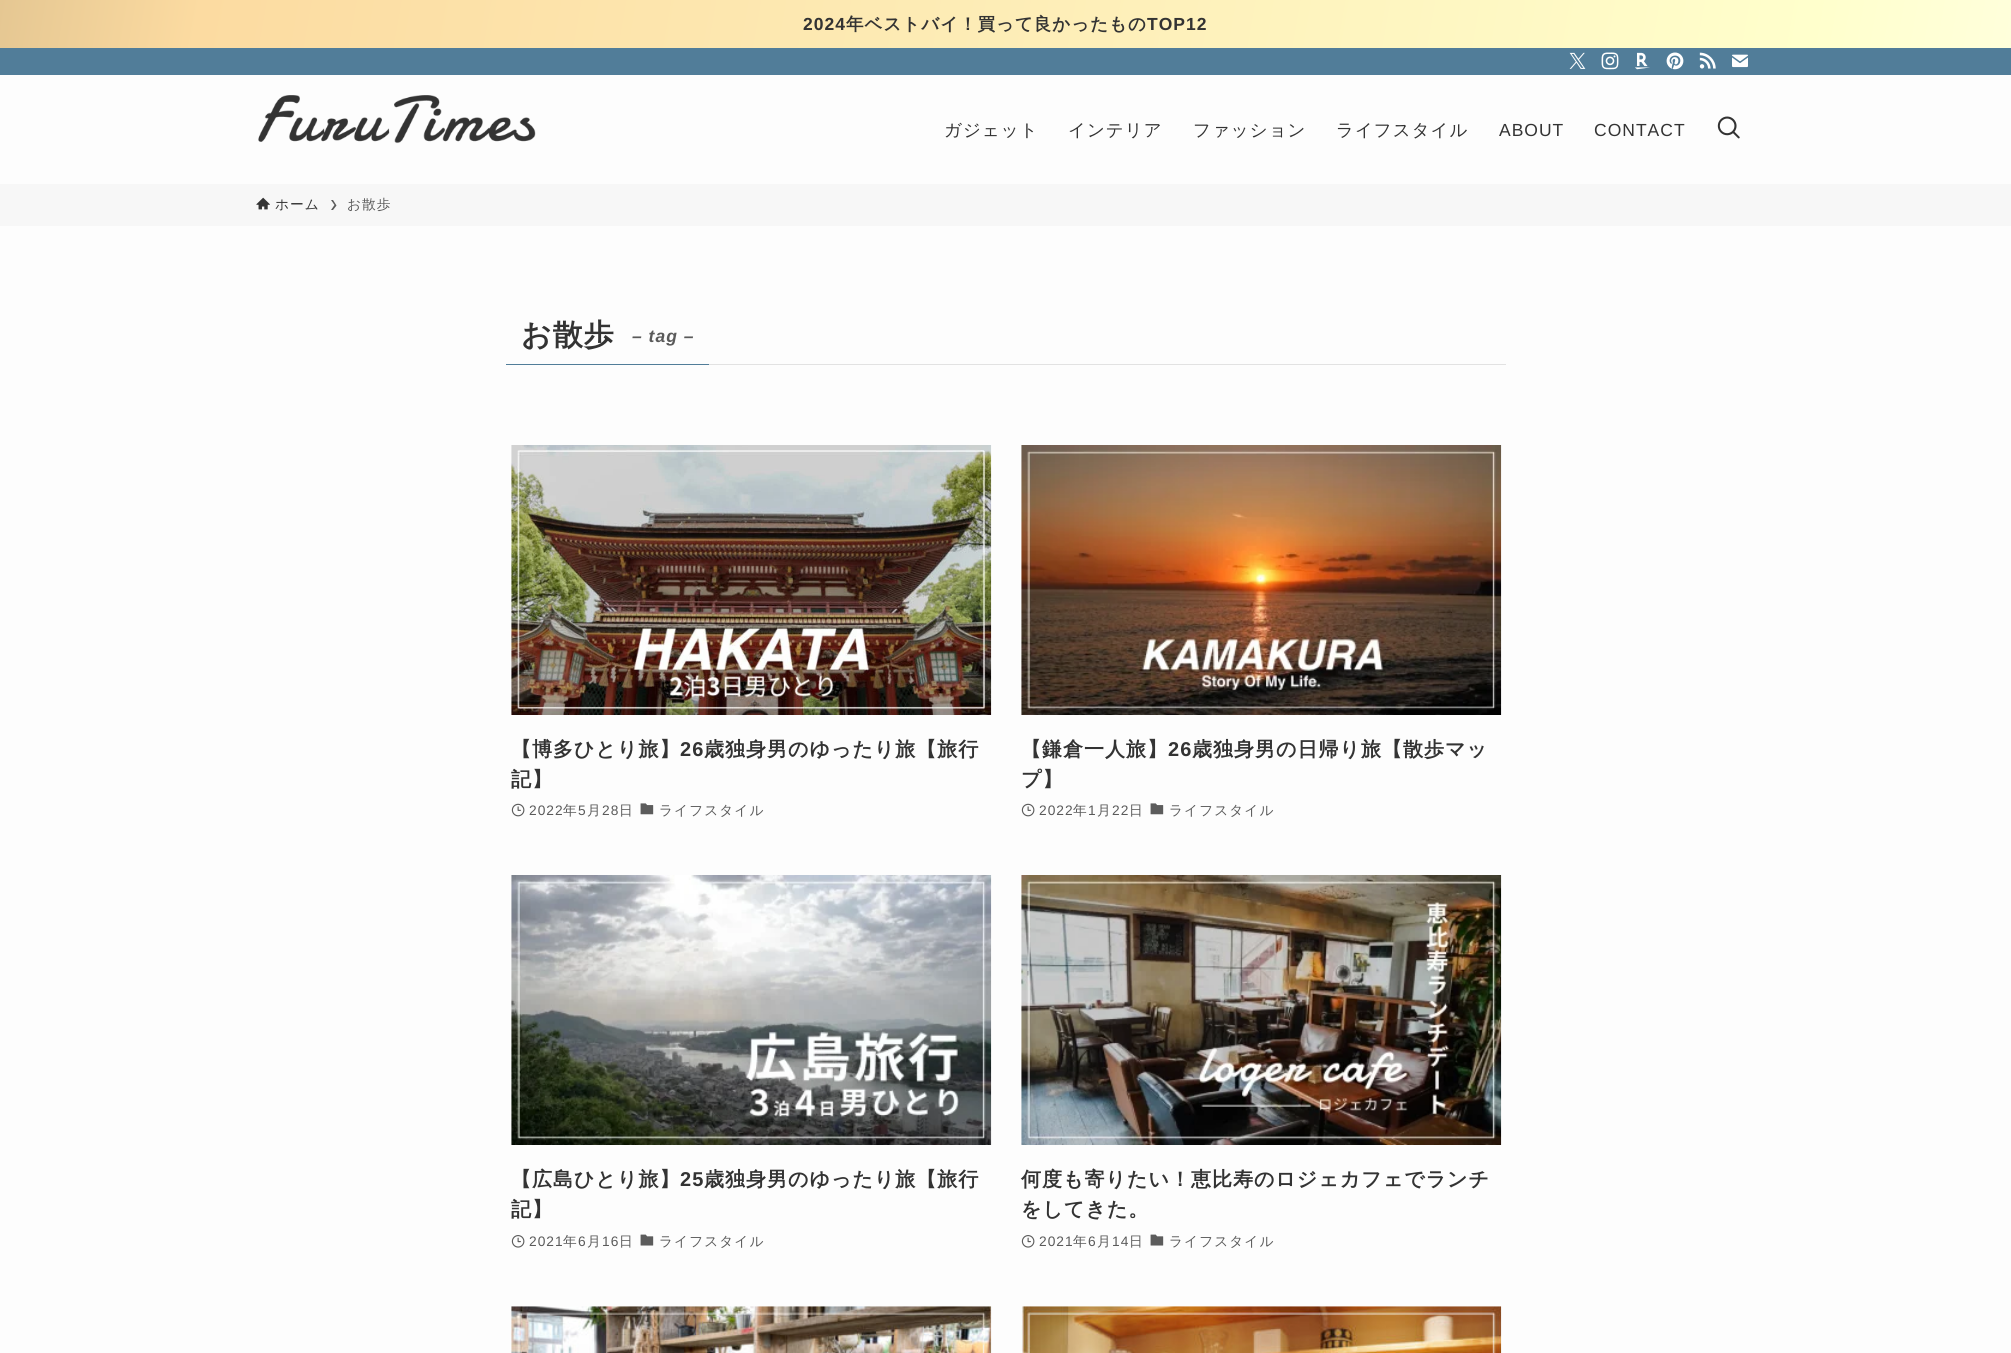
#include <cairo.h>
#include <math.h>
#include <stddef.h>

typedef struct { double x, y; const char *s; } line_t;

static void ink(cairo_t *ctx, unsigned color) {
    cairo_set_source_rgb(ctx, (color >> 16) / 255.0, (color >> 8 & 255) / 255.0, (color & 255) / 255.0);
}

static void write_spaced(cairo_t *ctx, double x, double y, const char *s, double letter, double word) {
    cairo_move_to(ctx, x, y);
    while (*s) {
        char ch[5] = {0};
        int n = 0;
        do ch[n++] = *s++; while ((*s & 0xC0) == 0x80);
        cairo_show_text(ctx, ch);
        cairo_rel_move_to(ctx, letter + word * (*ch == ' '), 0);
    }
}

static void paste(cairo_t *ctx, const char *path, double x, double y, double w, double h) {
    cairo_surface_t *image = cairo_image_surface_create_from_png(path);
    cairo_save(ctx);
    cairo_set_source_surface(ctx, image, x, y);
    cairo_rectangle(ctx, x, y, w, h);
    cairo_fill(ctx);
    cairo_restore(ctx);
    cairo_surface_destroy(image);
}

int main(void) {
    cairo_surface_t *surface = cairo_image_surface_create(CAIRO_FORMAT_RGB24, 2011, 1353);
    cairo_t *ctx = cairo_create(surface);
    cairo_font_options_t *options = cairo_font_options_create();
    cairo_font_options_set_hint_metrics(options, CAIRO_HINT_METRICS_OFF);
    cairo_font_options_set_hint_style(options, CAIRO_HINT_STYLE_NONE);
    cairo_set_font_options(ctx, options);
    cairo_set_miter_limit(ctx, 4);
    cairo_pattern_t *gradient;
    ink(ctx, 0xFDFDFD);
    cairo_paint(ctx);
    gradient = cairo_pattern_create_linear(26, -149, 1985, 196);
    cairo_pattern_add_color_stop_rgba(gradient, 0, 0.898, 0.78, 0.573, 1);
    cairo_pattern_add_color_stop_rgba(gradient, 0.1, 0.988, 0.859, 0.631, 1);
    cairo_pattern_add_color_stop_rgba(gradient, 0.9, 1, 1, 0.8, 1);
    cairo_pattern_add_color_stop_rgba(gradient, 1, 1, 1, 0.859, 1);
    cairo_set_source(ctx, gradient);
    cairo_pattern_destroy(gradient);
    cairo_rectangle(ctx, 0, 0, 2011, 48);
    cairo_fill(ctx);
    cairo_select_font_face(ctx, "Liberation Sans", CAIRO_FONT_SLANT_NORMAL, CAIRO_FONT_WEIGHT_BOLD);
    cairo_set_font_size(ctx, 17.5);
    ink(ctx, 0x333333);
    write_spaced(ctx, 803, 30, "2024", 1, 0);
    cairo_select_font_face(ctx, "WenQuanYi Zen Hei", CAIRO_FONT_SLANT_NORMAL, CAIRO_FONT_WEIGHT_BOLD);
    write_spaced(ctx, 846, 30, "年ベストバイ！買って良かったもの", 1, 0);
    cairo_select_font_face(ctx, "Liberation Sans", CAIRO_FONT_SLANT_NORMAL, CAIRO_FONT_WEIGHT_BOLD);
    write_spaced(ctx, 1147, 30, "TOP12", 1, 0);
    ink(ctx, 0x517D99);
    cairo_rectangle(ctx, 0, 48, 2011, 27);
    cairo_fill(ctx);
    paste(ctx, "media/1.png", 1569, 52, 17, 17);
    paste(ctx, "media/2.png", 1601, 52, 18, 18);
    paste(ctx, "media/3.png", 1635, 52, 15, 18);
    paste(ctx, "media/4.png", 1666, 52, 18, 18);
    paste(ctx, "media/5.png", 1699, 52, 17, 17);
    paste(ctx, "media/6.png", 1732, 54, 16, 14);
    paste(ctx, "media/7.png", 258, 95, 278, 49);
    cairo_select_font_face(ctx, "WenQuanYi Zen Hei Medium", CAIRO_FONT_SLANT_NORMAL, CAIRO_FONT_WEIGHT_NORMAL);
    ink(ctx, 0x333333);
    {
        static const line_t items[] = {
            {944, 136, "ガジェット"},
            {1068, 136, "インテリア"},
            {1193, 136, "ファッション"},
            {1336, 136, "ライフスタイル"},
        };
        for (size_t i = 0; i < sizeof items / sizeof *items; i++) {
            write_spaced(ctx, items[i].x, items[i].y, items[i].s, 1, 0);
        }
    }
    cairo_select_font_face(ctx, "Liberation Sans", CAIRO_FONT_SLANT_NORMAL, CAIRO_FONT_WEIGHT_NORMAL);
    write_spaced(ctx, 1499, 136, "ABOUT", 1, 0);
    write_spaced(ctx, 1594, 136, "CONTACT", 1, 0);
    paste(ctx, "media/8.png", 1717, 116, 23, 23);
    ink(ctx, 0xF7F7F7);
    cairo_rectangle(ctx, 0, 184, 2011, 42);
    cairo_fill(ctx);
    paste(ctx, "media/9.png", 256, 197, 14, 13);
    cairo_select_font_face(ctx, "WenQuanYi Zen Hei Medium", CAIRO_FONT_SLANT_NORMAL, CAIRO_FONT_WEIGHT_NORMAL);
    cairo_set_font_size(ctx, 13.75);
    ink(ctx, 0x333333);
    write_spaced(ctx, 275, 209, "ホーム", 1, 0);
    ink(ctx, 0x5A5A5A);
    cairo_new_path(ctx);
    cairo_move_to(ctx, 333, 200);
    cairo_line_to(ctx, 331, 200);
    cairo_line_to(ctx, 334.5, 205);
    cairo_line_to(ctx, 331, 210);
    cairo_line_to(ctx, 333, 210);
    cairo_line_to(ctx, 336.5, 205.5);
    cairo_close_path(ctx);
    cairo_fill(ctx);
    write_spaced(ctx, 347, 209, "お散歩", 1, 0);
    ink(ctx, 0xE2E2E2);
    cairo_rectangle(ctx, 709, 364, 797, 1);
    cairo_fill(ctx);
    ink(ctx, 0x517D99);
    cairo_rectangle(ctx, 506, 364, 203, 1);
    cairo_fill(ctx);
    cairo_select_font_face(ctx, "WenQuanYi Zen Hei", CAIRO_FONT_SLANT_NORMAL, CAIRO_FONT_WEIGHT_BOLD);
    cairo_set_font_size(ctx, 30);
    ink(ctx, 0x333333);
    write_spaced(ctx, 521, 345, "お散歩", 1, 0);
    cairo_select_font_face(ctx, "Liberation Sans", CAIRO_FONT_SLANT_ITALIC, CAIRO_FONT_WEIGHT_BOLD);
    cairo_set_font_size(ctx, 17.5);
    ink(ctx, 0x5A5A5A);
    write_spaced(ctx, 632, 342, "– tag –", 1, 0);
    paste(ctx, "media/10.png", 511, 445, 481, 270);
    cairo_select_font_face(ctx, "WenQuanYi Zen Hei", CAIRO_FONT_SLANT_NORMAL, CAIRO_FONT_WEIGHT_BOLD);
    cairo_set_font_size(ctx, 20);
    ink(ctx, 0x333333);
    write_spaced(ctx, 511, 756, "【博多ひとり旅】", 1, 0);
    cairo_select_font_face(ctx, "Liberation Sans", CAIRO_FONT_SLANT_NORMAL, CAIRO_FONT_WEIGHT_BOLD);
    write_spaced(ctx, 680, 756, "26", 1, 0);
    cairo_select_font_face(ctx, "WenQuanYi Zen Hei", CAIRO_FONT_SLANT_NORMAL, CAIRO_FONT_WEIGHT_BOLD);
    write_spaced(ctx, 704, 756, "歳独身男のゆったり旅【旅行", 1, 0);
    write_spaced(ctx, 511, 786, "記】", 1, 0);
    paste(ctx, "media/11.png", 511, 803, 14, 14);
    cairo_select_font_face(ctx, "Liberation Sans", CAIRO_FONT_SLANT_NORMAL, CAIRO_FONT_WEIGHT_NORMAL);
    cairo_set_font_size(ctx, 13.75);
    ink(ctx, 0x5A5A5A);
    write_spaced(ctx, 529, 815, "2022", 1, 0);
    cairo_select_font_face(ctx, "WenQuanYi Zen Hei Medium", CAIRO_FONT_SLANT_NORMAL, CAIRO_FONT_WEIGHT_NORMAL);
    write_spaced(ctx, 563, 815, "年", 1, 0);
    cairo_select_font_face(ctx, "Liberation Sans", CAIRO_FONT_SLANT_NORMAL, CAIRO_FONT_WEIGHT_NORMAL);
    write_spaced(ctx, 578, 815, "5", 1, 0);
    cairo_select_font_face(ctx, "WenQuanYi Zen Hei Medium", CAIRO_FONT_SLANT_NORMAL, CAIRO_FONT_WEIGHT_NORMAL);
    write_spaced(ctx, 587, 815, "月", 1, 0);
    cairo_select_font_face(ctx, "Liberation Sans", CAIRO_FONT_SLANT_NORMAL, CAIRO_FONT_WEIGHT_NORMAL);
    write_spaced(ctx, 602, 815, "28", 1, 0);
    cairo_select_font_face(ctx, "WenQuanYi Zen Hei Medium", CAIRO_FONT_SLANT_NORMAL, CAIRO_FONT_WEIGHT_NORMAL);
    write_spaced(ctx, 619, 815, "日", 1, 0);
    paste(ctx, "media/12.png", 640, 803, 14, 12);
    write_spaced(ctx, 659, 815, "ライフスタイル", 1, 0);
    paste(ctx, "media/13.png", 1021, 445, 481, 270);
    cairo_select_font_face(ctx, "WenQuanYi Zen Hei", CAIRO_FONT_SLANT_NORMAL, CAIRO_FONT_WEIGHT_BOLD);
    cairo_set_font_size(ctx, 20);
    ink(ctx, 0x333333);
    write_spaced(ctx, 1021, 756, "【鎌倉一人旅】", 1, 0);
    cairo_select_font_face(ctx, "Liberation Sans", CAIRO_FONT_SLANT_NORMAL, CAIRO_FONT_WEIGHT_BOLD);
    write_spaced(ctx, 1168, 756, "26", 1, 0);
    cairo_select_font_face(ctx, "WenQuanYi Zen Hei", CAIRO_FONT_SLANT_NORMAL, CAIRO_FONT_WEIGHT_BOLD);
    write_spaced(ctx, 1192, 756, "歳独身男の日帰り旅【散歩マッ", 1, 0);
    write_spaced(ctx, 1021, 786, "プ】", 1, 0);
    paste(ctx, "media/11.png", 1021, 803, 14, 14);
    cairo_select_font_face(ctx, "Liberation Sans", CAIRO_FONT_SLANT_NORMAL, CAIRO_FONT_WEIGHT_NORMAL);
    cairo_set_font_size(ctx, 13.75);
    ink(ctx, 0x5A5A5A);
    write_spaced(ctx, 1039, 815, "2022", 1, 0);
    cairo_select_font_face(ctx, "WenQuanYi Zen Hei Medium", CAIRO_FONT_SLANT_NORMAL, CAIRO_FONT_WEIGHT_NORMAL);
    write_spaced(ctx, 1073, 815, "年", 1, 0);
    cairo_select_font_face(ctx, "Liberation Sans", CAIRO_FONT_SLANT_NORMAL, CAIRO_FONT_WEIGHT_NORMAL);
    write_spaced(ctx, 1088, 815, "1", 1, 0);
    cairo_select_font_face(ctx, "WenQuanYi Zen Hei Medium", CAIRO_FONT_SLANT_NORMAL, CAIRO_FONT_WEIGHT_NORMAL);
    write_spaced(ctx, 1097, 815, "月", 1, 0);
    cairo_select_font_face(ctx, "Liberation Sans", CAIRO_FONT_SLANT_NORMAL, CAIRO_FONT_WEIGHT_NORMAL);
    write_spaced(ctx, 1112, 815, "22", 1, 0);
    cairo_select_font_face(ctx, "WenQuanYi Zen Hei Medium", CAIRO_FONT_SLANT_NORMAL, CAIRO_FONT_WEIGHT_NORMAL);
    write_spaced(ctx, 1129, 815, "日", 1, 0);
    paste(ctx, "media/12.png", 1150, 803, 14, 12);
    write_spaced(ctx, 1169, 815, "ライフスタイル", 1, 0);
    paste(ctx, "media/14.png", 511, 875, 481, 270);
    cairo_select_font_face(ctx, "WenQuanYi Zen Hei", CAIRO_FONT_SLANT_NORMAL, CAIRO_FONT_WEIGHT_BOLD);
    cairo_set_font_size(ctx, 20);
    ink(ctx, 0x333333);
    write_spaced(ctx, 511, 1186, "【広島ひとり旅】", 1, 0);
    cairo_select_font_face(ctx, "Liberation Sans", CAIRO_FONT_SLANT_NORMAL, CAIRO_FONT_WEIGHT_BOLD);
    write_spaced(ctx, 680, 1186, "25", 1, 0);
    cairo_select_font_face(ctx, "WenQuanYi Zen Hei", CAIRO_FONT_SLANT_NORMAL, CAIRO_FONT_WEIGHT_BOLD);
    write_spaced(ctx, 704, 1186, "歳独身男のゆったり旅【旅行", 1, 0);
    write_spaced(ctx, 511, 1216, "記】", 1, 0);
    paste(ctx, "media/15.png", 511, 1235, 14, 13);
    cairo_select_font_face(ctx, "Liberation Sans", CAIRO_FONT_SLANT_NORMAL, CAIRO_FONT_WEIGHT_NORMAL);
    cairo_set_font_size(ctx, 13.75);
    ink(ctx, 0x5A5A5A);
    write_spaced(ctx, 529, 1246, "2021", 1, 0);
    cairo_select_font_face(ctx, "WenQuanYi Zen Hei Medium", CAIRO_FONT_SLANT_NORMAL, CAIRO_FONT_WEIGHT_NORMAL);
    write_spaced(ctx, 563, 1246, "年", 1, 0);
    cairo_select_font_face(ctx, "Liberation Sans", CAIRO_FONT_SLANT_NORMAL, CAIRO_FONT_WEIGHT_NORMAL);
    write_spaced(ctx, 578, 1246, "6", 1, 0);
    cairo_select_font_face(ctx, "WenQuanYi Zen Hei Medium", CAIRO_FONT_SLANT_NORMAL, CAIRO_FONT_WEIGHT_NORMAL);
    write_spaced(ctx, 587, 1246, "月", 1, 0);
    cairo_select_font_face(ctx, "Liberation Sans", CAIRO_FONT_SLANT_NORMAL, CAIRO_FONT_WEIGHT_NORMAL);
    write_spaced(ctx, 602, 1246, "16", 1, 0);
    cairo_select_font_face(ctx, "WenQuanYi Zen Hei Medium", CAIRO_FONT_SLANT_NORMAL, CAIRO_FONT_WEIGHT_NORMAL);
    write_spaced(ctx, 619, 1246, "日", 1, 0);
    paste(ctx, "media/16.png", 640, 1234, 14, 12);
    write_spaced(ctx, 659, 1246, "ライフスタイル", 1, 0);
    paste(ctx, "media/17.png", 1021, 875, 481, 270);
    cairo_select_font_face(ctx, "WenQuanYi Zen Hei", CAIRO_FONT_SLANT_NORMAL, CAIRO_FONT_WEIGHT_BOLD);
    cairo_set_font_size(ctx, 20);
    ink(ctx, 0x333333);
    write_spaced(ctx, 1021, 1186, "何度も寄りたい！恵比寿のロジェカフェでランチ", 1, 0);
    write_spaced(ctx, 1021, 1216, "をしてきた。", 1, 0);
    paste(ctx, "media/15.png", 1021, 1235, 14, 13);
    cairo_select_font_face(ctx, "Liberation Sans", CAIRO_FONT_SLANT_NORMAL, CAIRO_FONT_WEIGHT_NORMAL);
    cairo_set_font_size(ctx, 13.75);
    ink(ctx, 0x5A5A5A);
    write_spaced(ctx, 1039, 1246, "2021", 1, 0);
    cairo_select_font_face(ctx, "WenQuanYi Zen Hei Medium", CAIRO_FONT_SLANT_NORMAL, CAIRO_FONT_WEIGHT_NORMAL);
    write_spaced(ctx, 1073, 1246, "年", 1, 0);
    cairo_select_font_face(ctx, "Liberation Sans", CAIRO_FONT_SLANT_NORMAL, CAIRO_FONT_WEIGHT_NORMAL);
    write_spaced(ctx, 1088, 1246, "6", 1, 0);
    cairo_select_font_face(ctx, "WenQuanYi Zen Hei Medium", CAIRO_FONT_SLANT_NORMAL, CAIRO_FONT_WEIGHT_NORMAL);
    write_spaced(ctx, 1097, 1246, "月", 1, 0);
    cairo_select_font_face(ctx, "Liberation Sans", CAIRO_FONT_SLANT_NORMAL, CAIRO_FONT_WEIGHT_NORMAL);
    write_spaced(ctx, 1112, 1246, "14", 1, 0);
    cairo_select_font_face(ctx, "WenQuanYi Zen Hei Medium", CAIRO_FONT_SLANT_NORMAL, CAIRO_FONT_WEIGHT_NORMAL);
    write_spaced(ctx, 1129, 1246, "日", 1, 0);
    paste(ctx, "media/16.png", 1150, 1234, 14, 12);
    write_spaced(ctx, 1169, 1246, "ライフスタイル", 1, 0);
    paste(ctx, "media/18.png", 511, 1306, 481, 47);
    paste(ctx, "media/19.png", 1021, 1306, 481, 47);
    cairo_surface_write_to_png(surface, "image.png");
    cairo_font_options_destroy(options);
    cairo_destroy(ctx);
    cairo_surface_destroy(surface);
    return 0;
}
